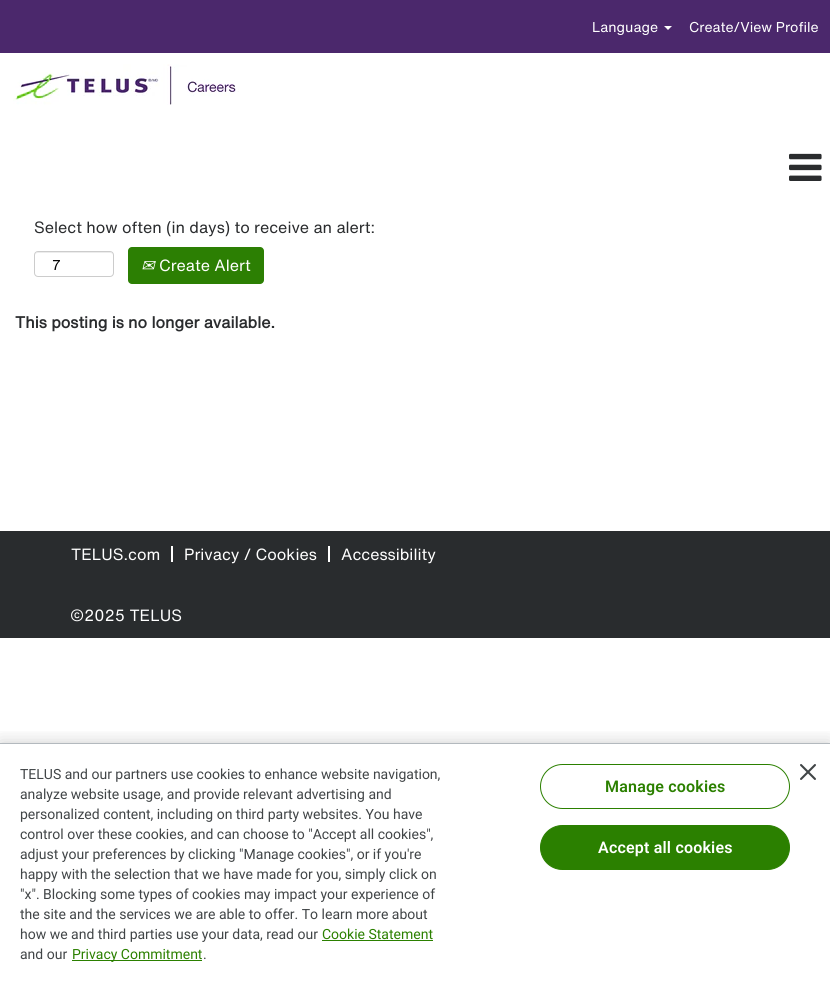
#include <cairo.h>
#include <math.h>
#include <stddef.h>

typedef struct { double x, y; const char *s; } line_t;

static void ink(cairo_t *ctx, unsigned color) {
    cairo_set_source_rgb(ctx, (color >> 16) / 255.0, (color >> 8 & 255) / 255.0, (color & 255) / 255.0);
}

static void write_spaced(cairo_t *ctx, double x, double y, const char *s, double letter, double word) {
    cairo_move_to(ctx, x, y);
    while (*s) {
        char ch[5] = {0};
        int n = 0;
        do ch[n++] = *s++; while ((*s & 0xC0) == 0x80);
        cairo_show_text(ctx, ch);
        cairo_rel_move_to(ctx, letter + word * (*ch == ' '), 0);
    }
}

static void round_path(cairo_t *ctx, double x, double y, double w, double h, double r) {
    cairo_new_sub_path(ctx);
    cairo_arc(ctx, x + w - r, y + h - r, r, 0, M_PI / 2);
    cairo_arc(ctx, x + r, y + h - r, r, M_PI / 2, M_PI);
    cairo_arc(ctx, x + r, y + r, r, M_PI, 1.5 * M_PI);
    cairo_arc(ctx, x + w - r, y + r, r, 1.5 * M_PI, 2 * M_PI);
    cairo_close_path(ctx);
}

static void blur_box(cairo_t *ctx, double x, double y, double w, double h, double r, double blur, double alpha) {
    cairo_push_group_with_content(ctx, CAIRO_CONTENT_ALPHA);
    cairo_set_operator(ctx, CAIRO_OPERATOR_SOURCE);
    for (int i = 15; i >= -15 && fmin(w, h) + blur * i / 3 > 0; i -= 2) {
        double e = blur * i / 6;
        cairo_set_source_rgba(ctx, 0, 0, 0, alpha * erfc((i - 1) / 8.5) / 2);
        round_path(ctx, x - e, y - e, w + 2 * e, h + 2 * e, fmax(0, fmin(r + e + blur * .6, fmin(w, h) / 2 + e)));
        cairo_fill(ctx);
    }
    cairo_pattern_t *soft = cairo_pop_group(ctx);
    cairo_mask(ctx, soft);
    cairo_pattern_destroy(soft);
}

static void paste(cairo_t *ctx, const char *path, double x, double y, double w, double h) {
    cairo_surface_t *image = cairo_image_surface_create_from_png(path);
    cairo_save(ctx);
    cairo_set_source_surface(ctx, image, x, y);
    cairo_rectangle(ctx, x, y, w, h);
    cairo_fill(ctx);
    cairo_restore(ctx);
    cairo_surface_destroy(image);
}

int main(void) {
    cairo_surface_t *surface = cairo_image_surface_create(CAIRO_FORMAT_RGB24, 830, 984);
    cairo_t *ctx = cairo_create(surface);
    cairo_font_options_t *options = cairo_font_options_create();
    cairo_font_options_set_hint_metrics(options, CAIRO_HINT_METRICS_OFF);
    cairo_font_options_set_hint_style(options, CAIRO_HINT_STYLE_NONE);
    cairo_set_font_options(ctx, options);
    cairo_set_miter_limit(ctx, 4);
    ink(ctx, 0xFFFFFF);
    cairo_paint(ctx);
    ink(ctx, 0x4B286C);
    cairo_rectangle(ctx, 0, 0, 830, 53);
    cairo_fill(ctx);
    cairo_select_font_face(ctx, "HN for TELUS", CAIRO_FONT_SLANT_NORMAL, CAIRO_FONT_WEIGHT_NORMAL);
    cairo_set_font_size(ctx, 14);
    ink(ctx, 0xFFFFFF);
    cairo_move_to(ctx, 592, 32);
    cairo_show_text(ctx, "Language");
    cairo_new_path(ctx);
    cairo_move_to(ctx, 664, 26);
    cairo_line_to(ctx, 672, 26);
    cairo_line_to(ctx, 668, 30);
    cairo_close_path(ctx);
    cairo_fill(ctx);
    cairo_move_to(ctx, 689, 32);
    cairo_show_text(ctx, "Create/View Profile");
    paste(ctx, "media/1.png", 13, 64, 226, 41);
    paste(ctx, "media/2.png", 789, 153, 33, 28);
    cairo_set_font_size(ctx, 16);
    ink(ctx, 0x2A2C2E);
    cairo_move_to(ctx, 34, 233);
    cairo_show_text(ctx, "Select how often (in days) to receive an alert:");
    ink(ctx, 0xECECEC);
    cairo_new_path(ctx);
    cairo_move_to(ctx, 38, 253);
    cairo_line_to(ctx, 110, 253);
    cairo_curve_to(ctx, 112, 253, 113, 254, 113, 256);
    cairo_curve_to(ctx, 113, 249, 102, 252, 98, 252);
    cairo_line_to(ctx, 50, 252);
    cairo_curve_to(ctx, 46, 252, 35, 249, 35, 256);
    cairo_curve_to(ctx, 35, 254, 36, 253, 38, 253);
    cairo_close_path(ctx);
    cairo_fill(ctx);
    round_path(ctx, 34.5, 251.5, 79, 25, 3.5);
    ink(ctx, 0xCCCCCC);
    cairo_set_line_width(ctx, 1);
    cairo_stroke(ctx);
    cairo_set_font_size(ctx, 14);
    ink(ctx, 0x000000);
    cairo_move_to(ctx, 52, 270);
    cairo_show_text(ctx, "7");
    ink(ctx, 0x2C7F03);
    round_path(ctx, 128, 247, 136, 37, 4);
    cairo_fill(ctx);
    cairo_select_font_face(ctx, "DejaVu Sans", CAIRO_FONT_SLANT_ITALIC, CAIRO_FONT_WEIGHT_NORMAL);
    cairo_set_font_size(ctx, 16);
    ink(ctx, 0xFFFFFF);
    cairo_move_to(ctx, 141, 271);
    cairo_show_text(ctx, "✉");
    cairo_select_font_face(ctx, "HN for TELUS", CAIRO_FONT_SLANT_NORMAL, CAIRO_FONT_WEIGHT_NORMAL);
    cairo_move_to(ctx, 159, 271);
    cairo_show_text(ctx, "Create Alert");
    cairo_select_font_face(ctx, "HN for TELUS", CAIRO_FONT_SLANT_NORMAL, CAIRO_FONT_WEIGHT_BOLD);
    ink(ctx, 0x2A2C2E);
    cairo_move_to(ctx, 15, 328);
    cairo_show_text(ctx, "This posting is no longer available.");
    ink(ctx, 0x292C2E);
    cairo_rectangle(ctx, 0, 531, 830, 107);
    cairo_fill(ctx);
    ink(ctx, 0xFFFFFF);
    cairo_rectangle(ctx, 171, 546, 2, 16);
    cairo_fill(ctx);
    cairo_select_font_face(ctx, "HN for TELUS", CAIRO_FONT_SLANT_NORMAL, CAIRO_FONT_WEIGHT_NORMAL);
    cairo_move_to(ctx, 71, 560);
    cairo_show_text(ctx, "TELUS.com");
    cairo_rectangle(ctx, 328, 546, 2, 16);
    cairo_fill(ctx);
    {
        static const line_t items[] = {
            {184, 560, "Privacy / Cookies"},
            {341, 560, "Accessibility"},
            {70, 621, "©2025 TELUS"},
        };
        for (size_t i = 0; i < sizeof items / sizeof *items; i++) {
            cairo_move_to(ctx, items[i].x, items[i].y);
            cairo_show_text(ctx, items[i].s);
        }
    }
    cairo_save(ctx);
    cairo_rectangle(ctx, 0, 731, 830, 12);
    cairo_clip(ctx);
    ink(ctx, 0x000000);
    blur_box(ctx, 0, 743, 830, 241, 0, 9, 0.2);
    cairo_restore(ctx);
    ink(ctx, 0xB3B9BE);
    cairo_rectangle(ctx, 0, 743, 830, 1);
    cairo_fill(ctx);
    cairo_select_font_face(ctx, "Roboto", CAIRO_FONT_SLANT_NORMAL, CAIRO_FONT_WEIGHT_NORMAL);
    cairo_set_font_size(ctx, 14);
    ink(ctx, 0x414547);
    {
        static const line_t items[] = {
            {20, 779, "TELUS and our partners use cookies to enhance website navigation,"},
            {20, 799, "analyze website usage, and provide relevant advertising and"},
            {20, 819, "personalized content, including on third party websites. You have"},
            {20, 839, "control over these cookies, and can choose to \"Accept all cookies\","},
            {20, 859, "adjust your preferences by clicking \"Manage cookies\", or if you're"},
            {20, 879, "happy with the selection that we have made for you, simply click on"},
            {20, 899, "\"x\". Blocking some types of cookies may impact your experience of"},
            {20, 919, "the site and the services we are able to offer. To learn more about"},
            {20, 939, "how we and third parties use your data, read our"},
        };
        for (size_t i = 0; i < sizeof items / sizeof *items; i++) {
            cairo_move_to(ctx, items[i].x, items[i].y);
            cairo_show_text(ctx, items[i].s);
        }
    }
    ink(ctx, 0x2B8000);
    cairo_move_to(ctx, 322, 939);
    cairo_show_text(ctx, "Cookie Statement");
    cairo_rectangle(ctx, 322, 940, 111, 1);
    cairo_fill(ctx);
    ink(ctx, 0x414547);
    cairo_move_to(ctx, 20, 959);
    cairo_show_text(ctx, "and our");
    ink(ctx, 0x2B8000);
    cairo_rectangle(ctx, 72, 960, 130, 1);
    cairo_fill(ctx);
    cairo_move_to(ctx, 72, 959);
    cairo_show_text(ctx, "Privacy Commitment");
    ink(ctx, 0x414547);
    cairo_move_to(ctx, 203, 959);
    cairo_show_text(ctx, ".");
    round_path(ctx, 540.5, 764.5, 249, 44, 22);
    ink(ctx, 0x2B8000);
    cairo_stroke(ctx);
    cairo_select_font_face(ctx, "Roboto SemiBold", CAIRO_FONT_SLANT_NORMAL, CAIRO_FONT_WEIGHT_NORMAL);
    cairo_set_font_size(ctx, 16);
    write_spaced(ctx, 605, 792, "Manage cookies", 0.2, 0);
    round_path(ctx, 540.5, 825.5, 249, 44, 22);
    cairo_fill_preserve(ctx);
    cairo_stroke(ctx);
    ink(ctx, 0xFFFFFF);
    write_spaced(ctx, 598, 853, "Accept all cookies", 0.2, 0);
    paste(ctx, "media/3.png", 800, 764, 16, 16);
    cairo_surface_write_to_png(surface, "image.png");
    cairo_font_options_destroy(options);
    cairo_destroy(ctx);
    cairo_surface_destroy(surface);
    return 0;
}
